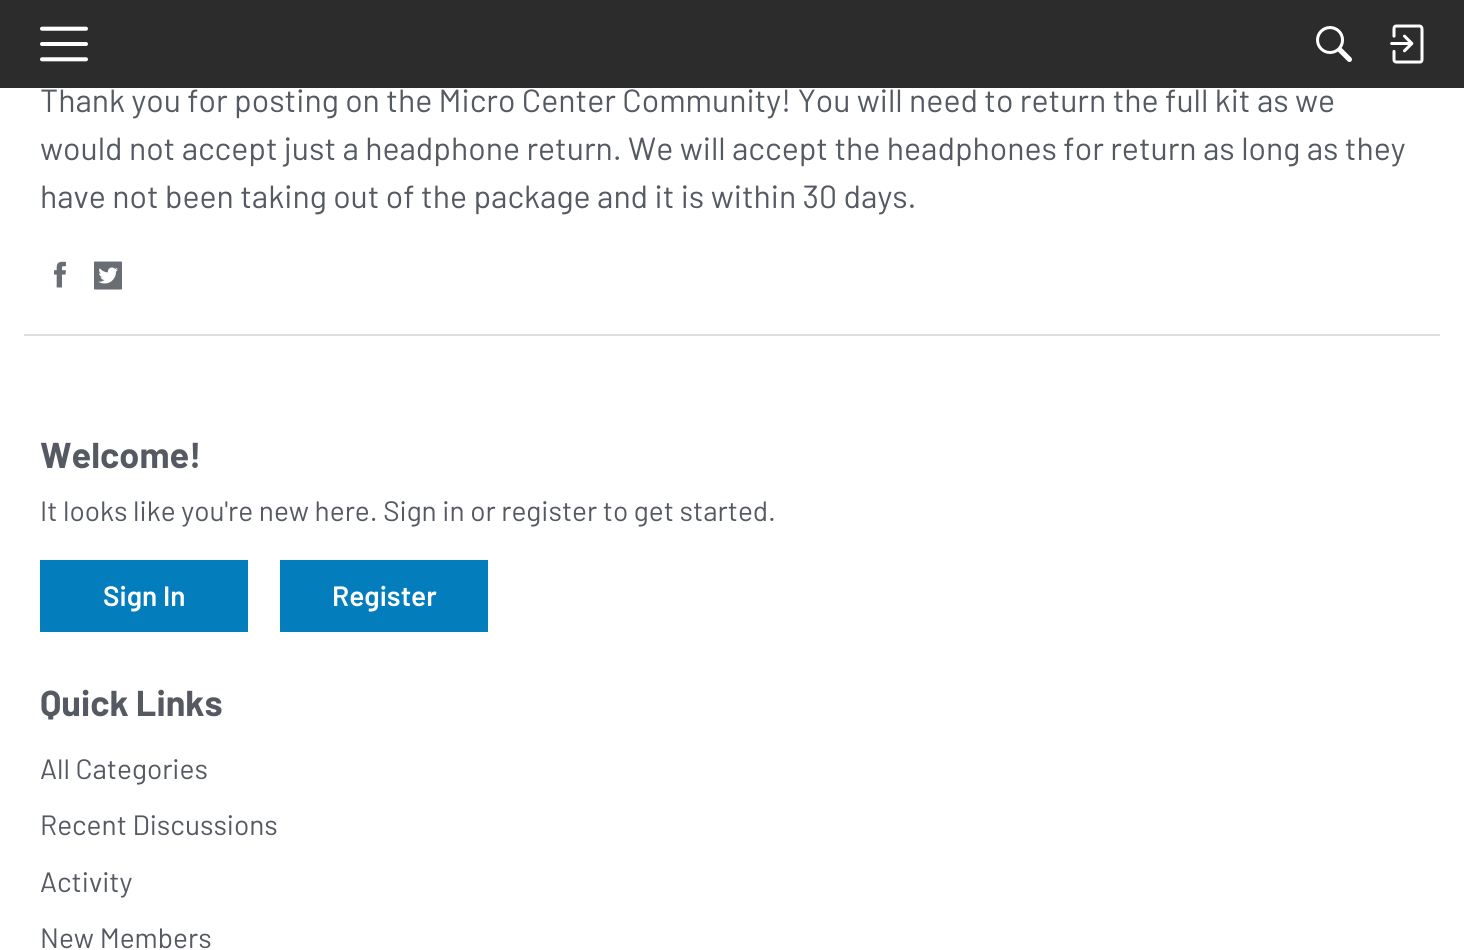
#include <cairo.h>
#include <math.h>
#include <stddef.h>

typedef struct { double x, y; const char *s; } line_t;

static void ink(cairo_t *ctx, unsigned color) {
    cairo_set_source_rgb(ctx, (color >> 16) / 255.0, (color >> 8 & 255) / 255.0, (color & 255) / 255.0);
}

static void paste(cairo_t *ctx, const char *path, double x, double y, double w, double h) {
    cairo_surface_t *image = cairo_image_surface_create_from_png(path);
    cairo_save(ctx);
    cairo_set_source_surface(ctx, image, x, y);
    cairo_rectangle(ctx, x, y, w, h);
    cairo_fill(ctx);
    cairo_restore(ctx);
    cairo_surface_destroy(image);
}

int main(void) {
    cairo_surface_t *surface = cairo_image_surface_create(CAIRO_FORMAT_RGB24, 1464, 950);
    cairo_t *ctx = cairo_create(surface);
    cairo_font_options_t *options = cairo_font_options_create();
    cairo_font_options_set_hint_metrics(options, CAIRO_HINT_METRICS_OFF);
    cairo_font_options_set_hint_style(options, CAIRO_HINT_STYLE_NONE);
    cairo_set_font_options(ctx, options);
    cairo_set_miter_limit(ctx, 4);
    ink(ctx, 0xFFFFFF);
    cairo_paint(ctx);
    ink(ctx, 0x2C2C2C);
    cairo_rectangle(ctx, 0, 0, 1464, 88);
    cairo_fill(ctx);
    paste(ctx, "media/1.png", 40, 26, 48, 36);
    paste(ctx, "media/2.png", 1316, 26, 36, 36);
    paste(ctx, "media/3.png", 1390, 24, 34, 40);
    cairo_select_font_face(ctx, "Barlow", CAIRO_FONT_SLANT_NORMAL, CAIRO_FONT_WEIGHT_NORMAL);
    cairo_set_font_size(ctx, 32);
    ink(ctx, 0x555A62);
    {
        static const line_t items[] = {
            {40, 112, "Thank you for posting on the Micro Center Community! You will need to return the full kit as we"},
            {40, 160, "would not accept just a headphone return. We will accept the headphones for return as long as they"},
            {40, 208, "have not been taking out of the package and it is within 30 days."},
        };
        for (size_t i = 0; i < sizeof items / sizeof *items; i++) {
            cairo_move_to(ctx, items[i].x, items[i].y);
            cairo_show_text(ctx, items[i].s);
        }
    }
    paste(ctx, "media/4.png", 54, 261, 12, 27);
    paste(ctx, "media/5.png", 94, 261, 28, 29);
    ink(ctx, 0xDDDEE0);
    cairo_rectangle(ctx, 24, 334, 1416, 2);
    cairo_fill(ctx);
    cairo_select_font_face(ctx, "Barlow", CAIRO_FONT_SLANT_NORMAL, CAIRO_FONT_WEIGHT_BOLD);
    cairo_set_font_size(ctx, 36);
    ink(ctx, 0x555A62);
    cairo_move_to(ctx, 40, 468);
    cairo_show_text(ctx, "Welcome!");
    cairo_select_font_face(ctx, "Barlow", CAIRO_FONT_SLANT_NORMAL, CAIRO_FONT_WEIGHT_NORMAL);
    cairo_set_font_size(ctx, 28);
    cairo_move_to(ctx, 40, 521);
    cairo_show_text(ctx, "It looks like you're new here. Sign in or register to get started.");
    ink(ctx, 0x037DBC);
    cairo_rectangle(ctx, 40, 560, 208, 72);
    cairo_fill(ctx);
    cairo_select_font_face(ctx, "Barlow SemiBold", CAIRO_FONT_SLANT_NORMAL, CAIRO_FONT_WEIGHT_NORMAL);
    ink(ctx, 0xFFFFFF);
    cairo_move_to(ctx, 103, 606);
    cairo_show_text(ctx, "Sign In");
    ink(ctx, 0x037DBC);
    cairo_rectangle(ctx, 280, 560, 208, 72);
    cairo_fill(ctx);
    ink(ctx, 0xFFFFFF);
    cairo_move_to(ctx, 332, 606);
    cairo_show_text(ctx, "Register");
    cairo_select_font_face(ctx, "Barlow", CAIRO_FONT_SLANT_NORMAL, CAIRO_FONT_WEIGHT_BOLD);
    cairo_set_font_size(ctx, 36);
    ink(ctx, 0x555A62);
    cairo_move_to(ctx, 40, 716);
    cairo_show_text(ctx, "Quick Links");
    cairo_select_font_face(ctx, "Barlow", CAIRO_FONT_SLANT_NORMAL, CAIRO_FONT_WEIGHT_NORMAL);
    cairo_set_font_size(ctx, 28);
    {
        static const line_t items[] = {
            {40, 779, "All Categories"},
            {40, 835, "Recent Discussions"},
            {40, 892, "Activity"},
            {40, 948, "New Members"},
        };
        for (size_t i = 0; i < sizeof items / sizeof *items; i++) {
            cairo_move_to(ctx, items[i].x, items[i].y);
            cairo_show_text(ctx, items[i].s);
        }
    }
    cairo_surface_write_to_png(surface, "image.png");
    cairo_font_options_destroy(options);
    cairo_destroy(ctx);
    cairo_surface_destroy(surface);
    return 0;
}
